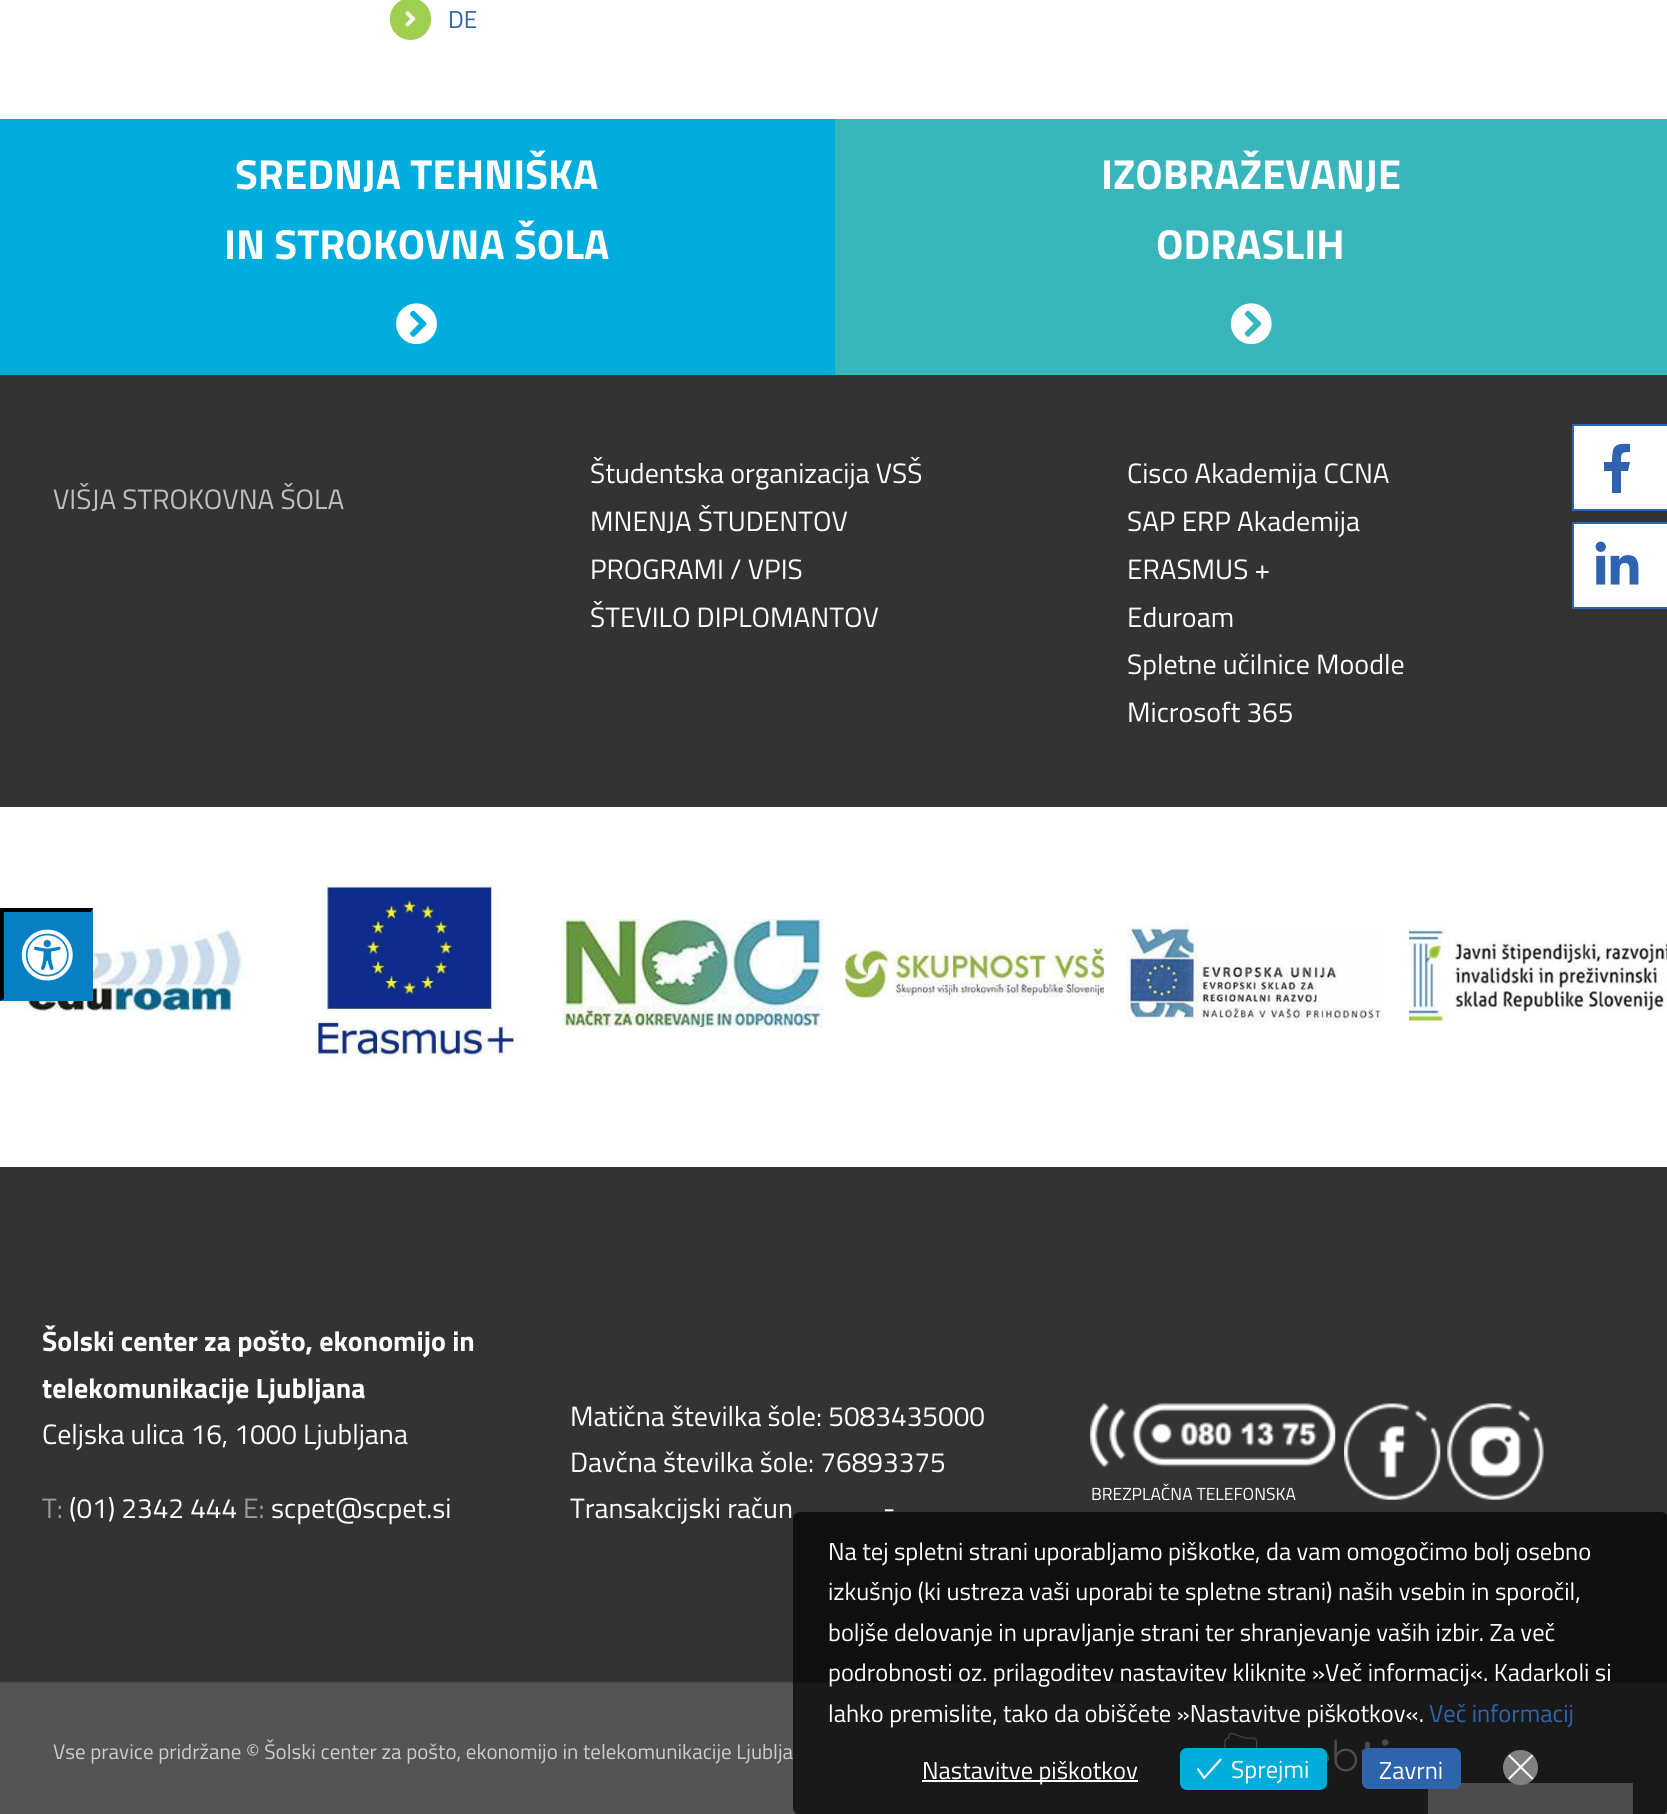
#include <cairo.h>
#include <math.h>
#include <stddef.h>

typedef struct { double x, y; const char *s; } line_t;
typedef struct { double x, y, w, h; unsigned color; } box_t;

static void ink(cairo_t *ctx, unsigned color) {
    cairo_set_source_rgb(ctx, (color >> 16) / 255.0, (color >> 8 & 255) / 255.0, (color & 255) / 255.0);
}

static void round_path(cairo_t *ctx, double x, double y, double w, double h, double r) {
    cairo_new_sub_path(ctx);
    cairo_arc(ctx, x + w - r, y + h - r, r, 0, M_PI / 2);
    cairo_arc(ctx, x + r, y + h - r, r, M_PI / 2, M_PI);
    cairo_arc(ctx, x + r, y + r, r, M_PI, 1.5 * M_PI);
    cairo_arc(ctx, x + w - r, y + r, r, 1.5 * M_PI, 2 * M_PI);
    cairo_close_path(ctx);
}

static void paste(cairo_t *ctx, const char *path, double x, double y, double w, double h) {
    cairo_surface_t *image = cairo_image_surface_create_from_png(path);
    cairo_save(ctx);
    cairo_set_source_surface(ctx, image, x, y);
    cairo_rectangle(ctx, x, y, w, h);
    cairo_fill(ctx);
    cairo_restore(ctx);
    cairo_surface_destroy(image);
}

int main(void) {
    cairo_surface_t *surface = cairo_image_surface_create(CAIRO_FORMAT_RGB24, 1667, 1814);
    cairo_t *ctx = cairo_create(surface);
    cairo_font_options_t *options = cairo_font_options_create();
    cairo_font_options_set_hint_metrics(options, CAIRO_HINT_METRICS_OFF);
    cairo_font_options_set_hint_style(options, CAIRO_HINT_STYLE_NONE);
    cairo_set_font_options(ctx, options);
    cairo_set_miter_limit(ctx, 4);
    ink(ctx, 0xFFFFFF);
    cairo_paint(ctx);
    ink(ctx, 0xA0CE4E);
    round_path(ctx, 390, -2, 41, 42, 20.5);
    cairo_fill(ctx);
    paste(ctx, "media/1.png", 405, 11, 11, 16);
    cairo_select_font_face(ctx, "Titillium Web", CAIRO_FONT_SLANT_NORMAL, CAIRO_FONT_WEIGHT_NORMAL);
    cairo_set_font_size(ctx, 24.5);
    ink(ctx, 0x2E64AF);
    cairo_move_to(ctx, 448, 28);
    cairo_show_text(ctx, "DE");
    ink(ctx, 0x00ADDC);
    cairo_rectangle(ctx, 0, 119, 835, 256);
    cairo_fill(ctx);
    cairo_select_font_face(ctx, "Titillium Web", CAIRO_FONT_SLANT_NORMAL, CAIRO_FONT_WEIGHT_BOLD);
    cairo_set_font_size(ctx, 42);
    ink(ctx, 0xFFFFFF);
    cairo_move_to(ctx, 235, 189);
    cairo_show_text(ctx, "SREDNJA TEHNIŠKA");
    cairo_move_to(ctx, 224, 259);
    cairo_show_text(ctx, "IN STROKOVNA ŠOLA");
    paste(ctx, "media/2.png", 396, 303, 41, 42);
    ink(ctx, 0x39B6BC);
    cairo_rectangle(ctx, 835, 119, 832, 256);
    cairo_fill(ctx);
    ink(ctx, 0xFFFFFF);
    cairo_move_to(ctx, 1101, 189);
    cairo_show_text(ctx, "IZOBRAŽEVANJE");
    cairo_move_to(ctx, 1156, 259);
    cairo_show_text(ctx, "ODRASLIH");
    paste(ctx, "media/3.png", 1230, 303, 42, 42);
    ink(ctx, 0x333333);
    cairo_rectangle(ctx, 0, 375, 1667, 432);
    cairo_fill(ctx);
    cairo_select_font_face(ctx, "Titillium Web", CAIRO_FONT_SLANT_NORMAL, CAIRO_FONT_WEIGHT_NORMAL);
    cairo_set_font_size(ctx, 28);
    ink(ctx, 0xBFBFBF);
    cairo_move_to(ctx, 53, 509);
    cairo_show_text(ctx, "VIŠJA STROKOVNA ŠOLA");
    ink(ctx, 0xFFFFFF);
    {
        static const line_t items[] = {
            {590, 483, "Študentska organizacija VSŠ"},
            {590, 531, "MNENJA ŠTUDENTOV"},
            {590, 579, "PROGRAMI / VPIS"},
            {590, 627, "ŠTEVILO DIPLOMANTOV"},
            {1127, 483, "Cisco Akademija CCNA"},
            {1127, 531, "SAP ERP Akademija"},
            {1127, 579, "ERASMUS +"},
            {1127, 627, "Eduroam"},
            {1127, 674, "Spletne učilnice Moodle"},
            {1127, 722, "Microsoft 365"},
        };
        for (size_t i = 0; i < sizeof items / sizeof *items; i++) {
            cairo_move_to(ctx, items[i].x, items[i].y);
            cairo_show_text(ctx, items[i].s);
        }
    }
    ink(ctx, 0x333333);
    cairo_rectangle(ctx, 0, 1167, 1667, 515);
    cairo_fill(ctx);
    paste(ctx, "media/4.png", 19, 929, 236, 83);
    paste(ctx, "media/5.png", 315, 881, 203, 179);
    paste(ctx, "media/6.png", 563, 919, 260, 109);
    paste(ctx, "media/7.png", 845, 948, 260, 50);
    paste(ctx, "media/8.png", 1127, 924, 258, 98);
    paste(ctx, "media/9.png", 1408, 921, 259, 102);
    cairo_select_font_face(ctx, "Titillium Web", CAIRO_FONT_SLANT_NORMAL, CAIRO_FONT_WEIGHT_BOLD);
    ink(ctx, 0xFFFFFF);
    cairo_move_to(ctx, 42, 1351);
    cairo_show_text(ctx, "Šolski center za pošto, ekonomijo in");
    cairo_move_to(ctx, 42, 1398);
    cairo_show_text(ctx, "telekomunikacije Ljubljana");
    cairo_select_font_face(ctx, "Titillium Web", CAIRO_FONT_SLANT_NORMAL, CAIRO_FONT_WEIGHT_NORMAL);
    cairo_move_to(ctx, 42, 1444);
    cairo_show_text(ctx, "Celjska ulica 16, 1000 Ljubljana");
    ink(ctx, 0x999999);
    cairo_move_to(ctx, 42, 1518);
    cairo_show_text(ctx, "T:");
    ink(ctx, 0xFFFFFF);
    cairo_move_to(ctx, 69, 1518);
    cairo_show_text(ctx, "(01) 2342 444");
    ink(ctx, 0x999999);
    cairo_move_to(ctx, 243, 1518);
    cairo_show_text(ctx, "E:");
    ink(ctx, 0xFFFFFF);
    {
        static const line_t items[] = {
            {271, 1518, "scpet@scpet.si"},
            {570, 1426, "Matična številka šole: 5083435000"},
            {570, 1472, "Davčna številka šole: 76893375"},
            {570, 1518, "Transakcijski račun"},
            {883, 1518, "-"},
        };
        for (size_t i = 0; i < sizeof items / sizeof *items; i++) {
            cairo_move_to(ctx, items[i].x, items[i].y);
            cairo_show_text(ctx, items[i].s);
        }
    }
    paste(ctx, "media/10.png", 1090, 1403, 246, 64);
    cairo_set_font_size(ctx, 17.5);
    cairo_move_to(ctx, 1091, 1500);
    cairo_show_text(ctx, "BREZPLAČNA TELEFONSKA");
    paste(ctx, "media/11.png", 1344, 1403, 97, 97);
    paste(ctx, "media/12.png", 1447, 1403, 97, 97);
    ink(ctx, 0x545454);
    cairo_rectangle(ctx, 0, 1684, 1667, 130);
    cairo_fill(ctx);
    ink(ctx, 0x4B4C4D);
    cairo_rectangle(ctx, 0, 1682, 1667, 2);
    cairo_fill(ctx);
    cairo_set_font_size(ctx, 21);
    ink(ctx, 0xCCCCCC);
    cairo_move_to(ctx, 53, 1759);
    cairo_show_text(ctx, "Vse pravice pridržane © Šolski center za pošto, ekonomijo in telekomunikacije Ljublja");
    paste(ctx, "media/13.png", 1224, 1733, 165, 39);
    {
        static const box_t items[] = {
            {1574, 426, 93, 83, 0xFFFFFF},
            {1572, 424, 95, 2, 0x2E64AF},
            {1572, 509, 95, 2, 0x2E64AF},
            {1572, 424, 2, 87, 0x2E64AF},
        };
        for (size_t i = 0; i < sizeof items / sizeof *items; i++) {
            ink(ctx, items[i].color);
            cairo_rectangle(ctx, items[i].x, items[i].y, items[i].w, items[i].h);
            cairo_fill(ctx);
        }
    }
    cairo_new_path(ctx);
    cairo_move_to(ctx, 1628, 471);
    cairo_line_to(ctx, 1621, 471);
    cairo_line_to(ctx, 1621, 493);
    cairo_line_to(ctx, 1612, 493);
    cairo_line_to(ctx, 1612, 471);
    cairo_line_to(ctx, 1604, 471);
    cairo_line_to(ctx, 1604, 462);
    cairo_line_to(ctx, 1612, 462);
    cairo_curve_to(ctx, 1612, 446, 1614, 443, 1630, 444);
    cairo_line_to(ctx, 1630, 452);
    cairo_curve_to(ctx, 1621, 452, 1621, 453, 1621, 462);
    cairo_line_to(ctx, 1630, 462);
    cairo_close_path(ctx);
    cairo_fill(ctx);
    {
        static const box_t items[] = {
            {1574, 524, 93, 83, 0xFFFFFF},
            {1572, 522, 95, 2, 0x2E64AF},
            {1572, 607, 95, 2, 0x2E64AF},
            {1572, 522, 2, 87, 0x2E64AF},
        };
        for (size_t i = 0; i < sizeof items / sizeof *items; i++) {
            ink(ctx, items[i].color);
            cairo_rectangle(ctx, items[i].x, items[i].y, items[i].w, items[i].h);
            cairo_fill(ctx);
        }
    }
    paste(ctx, "media/14.png", 1595, 541, 44, 44);
    ink(ctx, 0x0780C3);
    cairo_rectangle(ctx, 0, 908, 93, 93);
    cairo_fill(ctx);
    ink(ctx, 0x000000);
    cairo_new_path(ctx);
    cairo_move_to(ctx, 0, 908);
    cairo_line_to(ctx, 93, 908);
    cairo_line_to(ctx, 91, 912);
    cairo_line_to(ctx, 4, 912);
    cairo_close_path(ctx);
    cairo_fill(ctx);
    ink(ctx, 0x0780C3);
    cairo_new_path(ctx);
    cairo_move_to(ctx, 93, 908);
    cairo_line_to(ctx, 93, 1001);
    cairo_line_to(ctx, 91, 999);
    cairo_line_to(ctx, 91, 912);
    cairo_close_path(ctx);
    cairo_fill(ctx);
    ink(ctx, 0x000000);
    cairo_new_path(ctx);
    cairo_move_to(ctx, 0, 1001);
    cairo_line_to(ctx, 0, 908);
    cairo_line_to(ctx, 4, 912);
    cairo_line_to(ctx, 4, 999);
    cairo_close_path(ctx);
    cairo_fill(ctx);
    paste(ctx, "media/15.png", 21, 929, 52, 52);
    ink(ctx, 0xFFFFFF);
    cairo_rectangle(ctx, 1428, 1783, 205, 31);
    cairo_fill(ctx);
    cairo_set_source_rgba(ctx, 0, 0, 0, 0.7);
    round_path(ctx, 793, 1512, 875, 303, 7);
    cairo_fill(ctx);
    cairo_set_font_size(ctx, 24.5);
    ink(ctx, 0xFFFFFF);
    {
        static const line_t items[] = {
            {828, 1560, "Na tej spletni strani uporabljamo piškotke, da vam omogočimo bolj osebno"},
            {828, 1600, "izkušnjo (ki ustreza vaši uporabi te spletne strani) naših vsebin in sporočil,"},
            {828, 1641, "boljše delovanje in upravljanje strani ter shranjevanje vaših izbir. Za več"},
            {828, 1681, "podrobnosti oz. prilagoditev nastavitev kliknite »Več informacij«. Kadarkoli si"},
            {828, 1722, "lahko premislite, tako da obiščete »Nastavitve piškotkov«."},
        };
        for (size_t i = 0; i < sizeof items / sizeof *items; i++) {
            cairo_move_to(ctx, items[i].x, items[i].y);
            cairo_show_text(ctx, items[i].s);
        }
    }
    ink(ctx, 0x2E64AF);
    cairo_move_to(ctx, 1429, 1722);
    cairo_show_text(ctx, "Več informacij");
    ink(ctx, 0xFFFFFF);
    cairo_rectangle(ctx, 922, 1780, 216, 2);
    cairo_fill(ctx);
    cairo_move_to(ctx, 922, 1779);
    cairo_show_text(ctx, "Nastavitve piškotkov");
    ink(ctx, 0x00ACDA);
    round_path(ctx, 1180, 1748, 147, 42, 7);
    cairo_fill(ctx);
    paste(ctx, "media/16.png", 1197, 1758, 25, 21);
    ink(ctx, 0xFFFFFF);
    cairo_move_to(ctx, 1231, 1778);
    cairo_show_text(ctx, "Sprejmi");
    ink(ctx, 0x2E63AD);
    round_path(ctx, 1362, 1748, 99, 41, 7);
    cairo_fill(ctx);
    ink(ctx, 0xFFFFFF);
    cairo_move_to(ctx, 1379, 1779);
    cairo_show_text(ctx, "Zavrni");
    ink(ctx, 0x808080);
    cairo_new_path(ctx);
    cairo_arc(ctx, 1520.5, 1767.5, 17.5, 0, 2 * M_PI);
    cairo_fill(ctx);
    paste(ctx, "media/17.png", 1508, 1754, 25, 26);
    cairo_surface_write_to_png(surface, "image.png");
    cairo_font_options_destroy(options);
    cairo_destroy(ctx);
    cairo_surface_destroy(surface);
    return 0;
}
